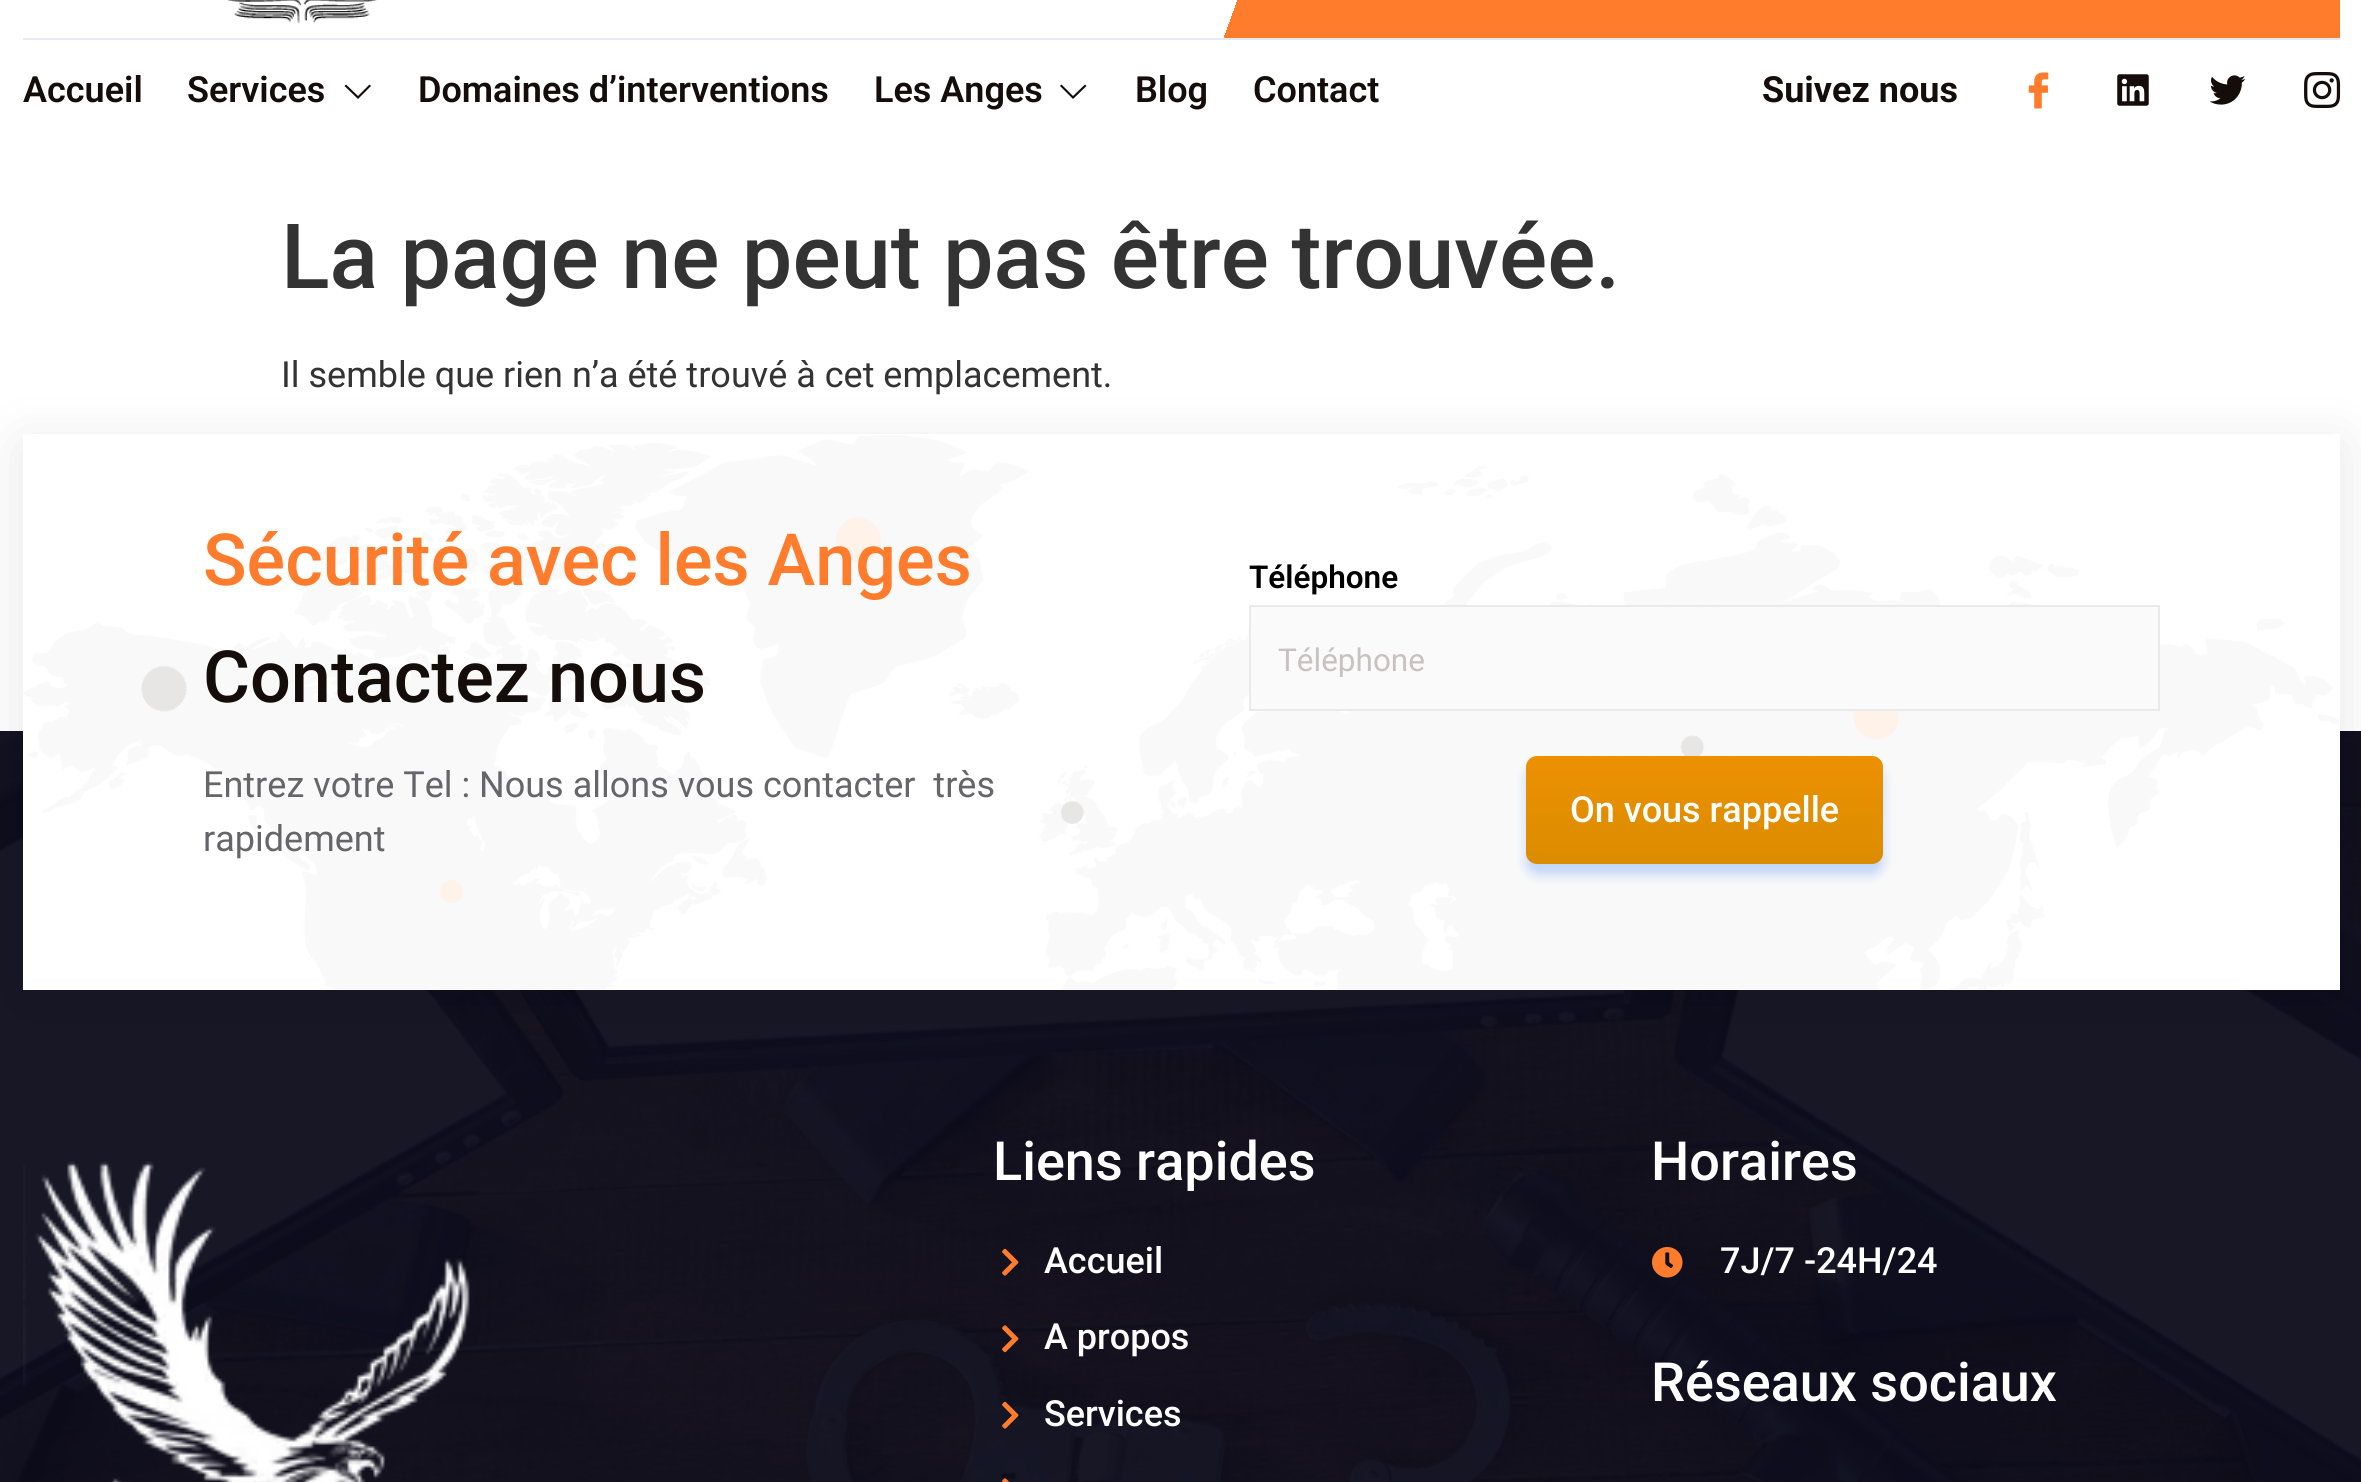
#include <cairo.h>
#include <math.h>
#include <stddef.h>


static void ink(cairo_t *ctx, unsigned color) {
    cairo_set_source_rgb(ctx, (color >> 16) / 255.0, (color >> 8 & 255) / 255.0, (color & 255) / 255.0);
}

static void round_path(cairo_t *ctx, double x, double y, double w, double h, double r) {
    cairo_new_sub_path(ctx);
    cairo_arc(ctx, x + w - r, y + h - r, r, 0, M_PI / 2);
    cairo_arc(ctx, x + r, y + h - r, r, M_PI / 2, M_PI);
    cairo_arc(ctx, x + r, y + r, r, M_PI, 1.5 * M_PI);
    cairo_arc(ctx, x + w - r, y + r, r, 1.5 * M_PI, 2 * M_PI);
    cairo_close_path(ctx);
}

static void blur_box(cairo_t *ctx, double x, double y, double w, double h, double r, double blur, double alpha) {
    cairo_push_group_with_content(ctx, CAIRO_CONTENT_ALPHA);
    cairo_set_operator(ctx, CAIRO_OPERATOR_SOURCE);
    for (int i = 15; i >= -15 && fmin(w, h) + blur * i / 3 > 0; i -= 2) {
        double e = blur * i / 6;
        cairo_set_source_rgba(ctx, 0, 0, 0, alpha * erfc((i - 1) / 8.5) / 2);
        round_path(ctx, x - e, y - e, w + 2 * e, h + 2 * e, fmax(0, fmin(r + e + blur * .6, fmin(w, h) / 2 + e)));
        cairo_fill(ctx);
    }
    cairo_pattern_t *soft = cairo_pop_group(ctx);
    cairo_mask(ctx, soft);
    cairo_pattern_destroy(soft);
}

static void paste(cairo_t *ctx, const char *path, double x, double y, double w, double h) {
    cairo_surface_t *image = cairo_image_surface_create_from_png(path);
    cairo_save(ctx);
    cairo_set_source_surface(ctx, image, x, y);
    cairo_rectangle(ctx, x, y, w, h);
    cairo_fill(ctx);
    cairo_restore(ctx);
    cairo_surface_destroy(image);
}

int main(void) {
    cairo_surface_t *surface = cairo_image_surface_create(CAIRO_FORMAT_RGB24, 2361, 1482);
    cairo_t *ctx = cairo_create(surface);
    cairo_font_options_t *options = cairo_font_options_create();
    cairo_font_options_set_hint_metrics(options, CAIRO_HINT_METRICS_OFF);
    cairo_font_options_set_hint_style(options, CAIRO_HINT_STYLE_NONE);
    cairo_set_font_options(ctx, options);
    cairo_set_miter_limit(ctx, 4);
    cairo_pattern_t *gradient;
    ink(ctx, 0xFFFFFF);
    cairo_paint(ctx);
    paste(ctx, "media/1.png", 227, 0, 150, 24);
    gradient = cairo_pattern_create_linear(2267, 238, 651, -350);
    cairo_pattern_add_color_stop_rgba(gradient, 0.61, 1, 0.486, 0.173, 1);
    cairo_pattern_add_color_stop_rgba(gradient, 0.61, 1, 1, 1, 1);
    cairo_set_source(ctx, gradient);
    cairo_pattern_destroy(gradient);
    cairo_rectangle(ctx, 1224, 0, 1116, 38);
    cairo_fill(ctx);
    ink(ctx, 0xE7EBF0);
    cairo_rectangle(ctx, 23, 38, 2317, 2);
    cairo_fill(ctx);
    cairo_select_font_face(ctx, "Roboto SemiBold", CAIRO_FONT_SLANT_NORMAL, CAIRO_FONT_WEIGHT_NORMAL);
    cairo_set_font_size(ctx, 36);
    ink(ctx, 0x140D09);
    cairo_move_to(ctx, 23, 102);
    cairo_show_text(ctx, "Accueil");
    cairo_move_to(ctx, 187, 102);
    cairo_show_text(ctx, "Services");
    cairo_new_path(ctx);
    cairo_move_to(ctx, 346, 84.5);
    cairo_line_to(ctx, 344.5, 86);
    cairo_line_to(ctx, 358, 99);
    cairo_line_to(ctx, 371, 86);
    cairo_line_to(ctx, 369.5, 84.5);
    cairo_line_to(ctx, 358, 96);
    cairo_close_path(ctx);
    cairo_fill(ctx);
    cairo_move_to(ctx, 418, 102);
    cairo_show_text(ctx, "Domaines d’interventions");
    cairo_move_to(ctx, 874, 102);
    cairo_show_text(ctx, "Les Anges");
    cairo_new_path(ctx);
    cairo_move_to(ctx, 1061.5, 84.5);
    cairo_line_to(ctx, 1060, 86);
    cairo_line_to(ctx, 1073, 99);
    cairo_line_to(ctx, 1086.5, 86);
    cairo_line_to(ctx, 1085, 84.5);
    cairo_line_to(ctx, 1073, 96);
    cairo_close_path(ctx);
    cairo_fill(ctx);
    cairo_move_to(ctx, 1135, 102);
    cairo_show_text(ctx, "Blog");
    cairo_move_to(ctx, 1253, 102);
    cairo_show_text(ctx, "Contact");
    cairo_select_font_face(ctx, "Roboto", CAIRO_FONT_SLANT_NORMAL, CAIRO_FONT_WEIGHT_BOLD);
    cairo_move_to(ctx, 1762, 102);
    cairo_show_text(ctx, "Suivez nous");
    paste(ctx, "media/2.png", 2028, 72, 21, 37);
    paste(ctx, "media/3.png", 2117, 74, 32, 32);
    paste(ctx, "media/4.png", 2210, 75, 36, 30);
    paste(ctx, "media/5.png", 2304, 72, 37, 36);
    cairo_select_font_face(ctx, "Roboto Medium", CAIRO_FONT_SLANT_NORMAL, CAIRO_FONT_WEIGHT_NORMAL);
    cairo_set_font_size(ctx, 90);
    ink(ctx, 0x333333);
    cairo_move_to(ctx, 281, 288);
    cairo_show_text(ctx, "La page ne peut pas être trouvée.");
    cairo_select_font_face(ctx, "Roboto", CAIRO_FONT_SLANT_NORMAL, CAIRO_FONT_WEIGHT_NORMAL);
    cairo_set_font_size(ctx, 36);
    cairo_move_to(ctx, 281, 387);
    cairo_show_text(ctx, "Il semble que rien n’a été trouvé à cet emplacement.");
    paste(ctx, "media/7.png", 0, 731, 2361, 751);
    ink(ctx, 0x000000);
    blur_box(ctx, 23, 446, 2317, 555, 0, 28, 0.1);
    ink(ctx, 0xFFFFFF);
    cairo_rectangle(ctx, 23, 434, 2317, 556);
    cairo_fill(ctx);
    paste(ctx, "media/6.png", 23, 435, 2316, 555);
    cairo_select_font_face(ctx, "Roboto Medium", CAIRO_FONT_SLANT_NORMAL, CAIRO_FONT_WEIGHT_NORMAL);
    cairo_set_font_size(ctx, 72);
    ink(ctx, 0xFF7C2C);
    cairo_move_to(ctx, 203, 585);
    cairo_show_text(ctx, "Sécurité avec les Anges");
    ink(ctx, 0x140D09);
    cairo_move_to(ctx, 203, 702);
    cairo_show_text(ctx, "Contactez nous");
    cairo_select_font_face(ctx, "Roboto", CAIRO_FONT_SLANT_NORMAL, CAIRO_FONT_WEIGHT_NORMAL);
    cairo_set_font_size(ctx, 36);
    ink(ctx, 0x65656A);
    cairo_move_to(ctx, 203, 797);
    cairo_show_text(ctx, "Entrez votre Tel : Nous allons vous contacter  très");
    cairo_move_to(ctx, 203, 851);
    cairo_show_text(ctx, "rapidement");
    cairo_select_font_face(ctx, "Roboto SemiBold", CAIRO_FONT_SLANT_NORMAL, CAIRO_FONT_WEIGHT_NORMAL);
    cairo_set_font_size(ctx, 31.5);
    ink(ctx, 0x000000);
    cairo_move_to(ctx, 1249, 588);
    cairo_show_text(ctx, "Téléphone");
    ink(ctx, 0xFAFAFA);
    cairo_rectangle(ctx, 1250, 606, 909, 104);
    cairo_fill_preserve(ctx);
    ink(ctx, 0xEAEAEA);
    cairo_stroke(ctx);
    cairo_save(ctx);
    cairo_rectangle(ctx, 1278, 641, 853, 36);
    cairo_clip(ctx);
    cairo_select_font_face(ctx, "Roboto", CAIRO_FONT_SLANT_NORMAL, CAIRO_FONT_WEIGHT_NORMAL);
    ink(ctx, 0xC9C1C1);
    cairo_move_to(ctx, 1278, 671);
    cairo_show_text(ctx, "Téléphone");
    cairo_restore(ctx);
    ink(ctx, 0x4285F4);
    blur_box(ctx, 1526, 767, 357, 108, 11, 5.5, 0.3);
    gradient = cairo_pattern_create_linear(1704, 756, 1704, 864);
    cairo_pattern_add_color_stop_rgba(gradient, 0, 0.929, 0.565, 0.012, 1);
    cairo_pattern_add_color_stop_rgba(gradient, 1, 0.859, 0.549, 0, 1);
    cairo_set_source(ctx, gradient);
    cairo_pattern_destroy(gradient);
    round_path(ctx, 1526, 756, 357, 108, 11);
    cairo_fill(ctx);
    cairo_select_font_face(ctx, "Roboto Medium", CAIRO_FONT_SLANT_NORMAL, CAIRO_FONT_WEIGHT_NORMAL);
    cairo_set_font_size(ctx, 36);
    ink(ctx, 0xFFFFFF);
    cairo_move_to(ctx, 1570, 822);
    cairo_show_text(ctx, "On vous rappelle");
    paste(ctx, "media/8.png", 23, 1161, 447, 321);
    cairo_set_font_size(ctx, 54);
    cairo_move_to(ctx, 993, 1180);
    cairo_show_text(ctx, "Liens rapides");
    paste(ctx, "media/9.png", 1002, 1248, 17, 28);
    cairo_set_font_size(ctx, 36);
    cairo_move_to(ctx, 1044, 1273);
    cairo_show_text(ctx, "Accueil");
    paste(ctx, "media/10.png", 1002, 1325, 17, 28);
    cairo_move_to(ctx, 1044, 1349);
    cairo_show_text(ctx, "A propos");
    paste(ctx, "media/11.png", 1002, 1401, 17, 28);
    cairo_move_to(ctx, 1044, 1426);
    cairo_show_text(ctx, "Services");
    paste(ctx, "media/12.png", 1002, 1478, 8, 4);
    cairo_set_font_size(ctx, 54);
    cairo_move_to(ctx, 1651, 1180);
    cairo_show_text(ctx, "Horaires");
    paste(ctx, "media/13.png", 1652, 1247, 31, 31);
    cairo_set_font_size(ctx, 36);
    cairo_move_to(ctx, 1720, 1273);
    cairo_show_text(ctx, "7J/7 -24H/24");
    cairo_set_font_size(ctx, 54);
    cairo_move_to(ctx, 1651, 1401);
    cairo_show_text(ctx, "Réseaux sociaux");
    cairo_surface_write_to_png(surface, "image.png");
    cairo_font_options_destroy(options);
    cairo_destroy(ctx);
    cairo_surface_destroy(surface);
    return 0;
}
